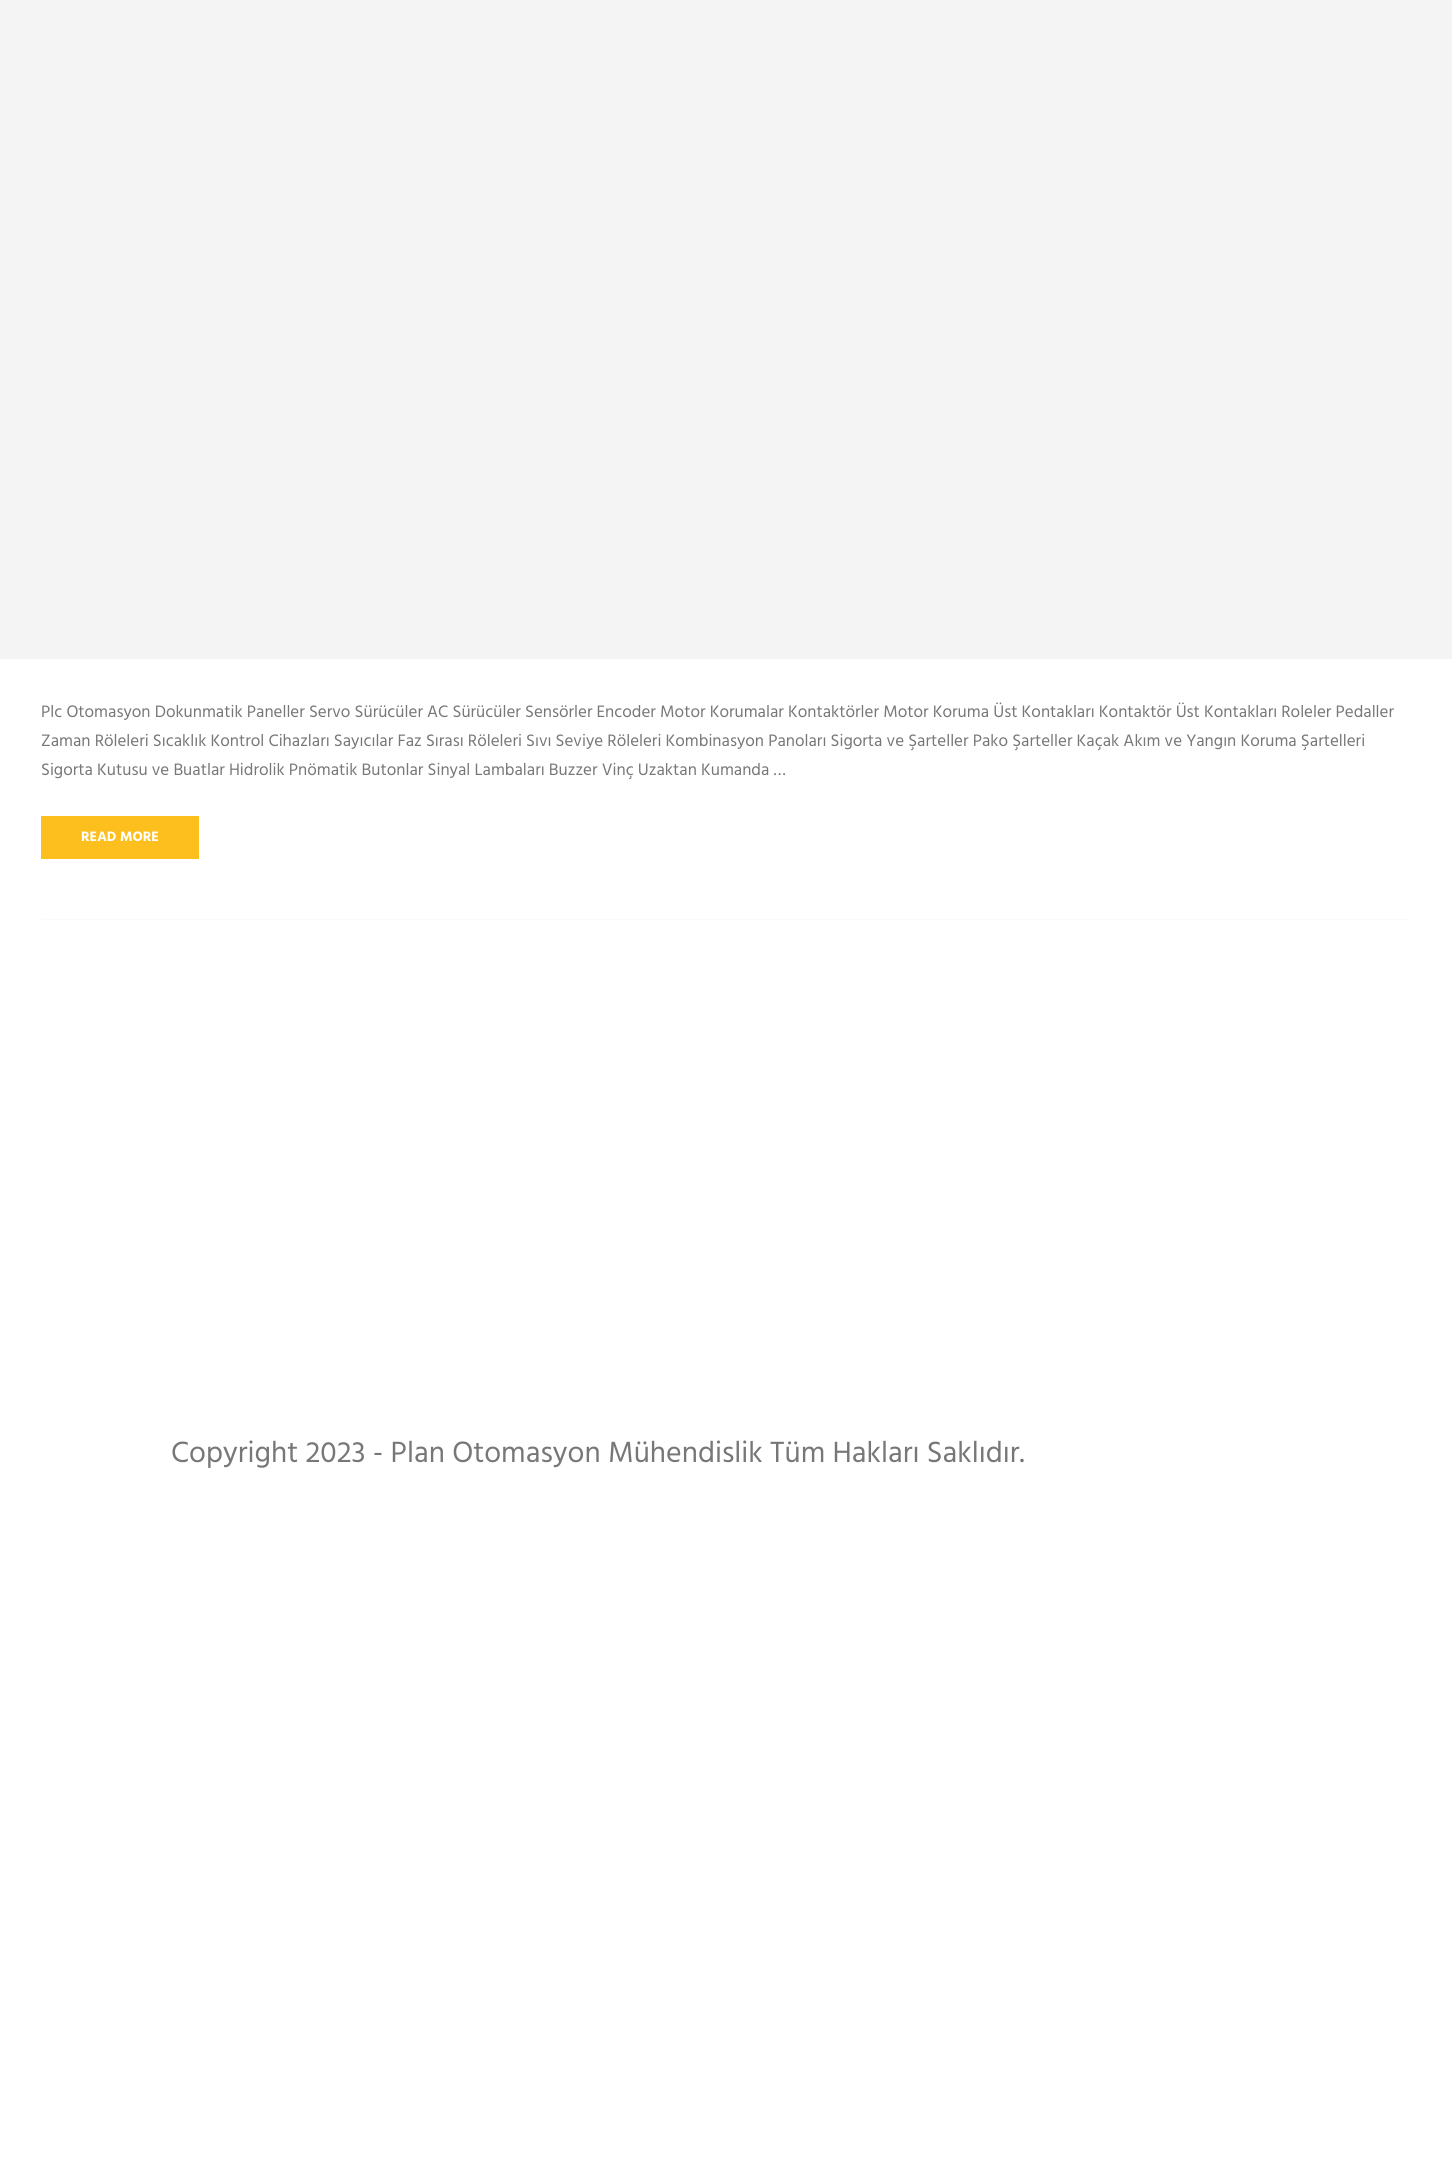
#include <cairo.h>
#include <math.h>
#include <stddef.h>

typedef struct { double x, y; const char *s; } line_t;

static void ink(cairo_t *ctx, unsigned color) {
    cairo_set_source_rgb(ctx, (color >> 16) / 255.0, (color >> 8 & 255) / 255.0, (color & 255) / 255.0);
}

int main(void) {
    cairo_surface_t *surface = cairo_image_surface_create(CAIRO_FORMAT_RGB24, 1452, 2161);
    cairo_t *ctx = cairo_create(surface);
    cairo_font_options_t *options = cairo_font_options_create();
    cairo_font_options_set_hint_metrics(options, CAIRO_HINT_METRICS_OFF);
    cairo_font_options_set_hint_style(options, CAIRO_HINT_STYLE_NONE);
    cairo_set_font_options(ctx, options);
    cairo_set_miter_limit(ctx, 4);
    ink(ctx, 0xFFFFFF);
    cairo_paint(ctx);
    ink(ctx, 0xF4F4F4);
    cairo_rectangle(ctx, 0, 0, 1452, 659);
    cairo_fill(ctx);
    cairo_select_font_face(ctx, "Hind", CAIRO_FONT_SLANT_NORMAL, CAIRO_FONT_WEIGHT_NORMAL);
    cairo_set_font_size(ctx, 17);
    ink(ctx, 0x777777);
    {
        static const line_t items[] = {
            {41, 717, "Plc Otomasyon Dokunmatik Paneller Servo Sürücüler AC Sürücüler Sensörler Encoder Motor Korumalar Kontaktörler Motor Koruma Üst Kontakları Kontaktör Üst Kontakları Roleler Pedaller"},
            {41, 746, "Zaman Röleleri Sıcaklık Kontrol Cihazları Sayıcılar Faz Sırası Röleleri Sıvı Seviye Röleleri Kombinasyon Panoları Sigorta ve Şarteller Pako Şarteller Kaçak Akım ve Yangın Koruma Şartelleri"},
            {41, 775, "Sigorta Kutusu ve Buatlar Hidrolik Pnömatik Butonlar Sinyal Lambaları Buzzer Vinç Uzaktan Kumanda …"},
        };
        for (size_t i = 0; i < sizeof items / sizeof *items; i++) {
            cairo_move_to(ctx, items[i].x, items[i].y);
            cairo_show_text(ctx, items[i].s);
        }
    }
    ink(ctx, 0xFCBF1E);
    cairo_rectangle(ctx, 41, 816, 158, 43);
    cairo_fill(ctx);
    cairo_select_font_face(ctx, "Hind", CAIRO_FONT_SLANT_NORMAL, CAIRO_FONT_WEIGHT_BOLD);
    cairo_set_font_size(ctx, 14);
    ink(ctx, 0xFFFFFF);
    cairo_move_to(ctx, 81, 841);
    cairo_show_text(ctx, "READ MORE");
    ink(ctx, 0xFAFAFA);
    cairo_rectangle(ctx, 41, 919, 1370, 1);
    cairo_fill(ctx);
    cairo_select_font_face(ctx, "Hind", CAIRO_FONT_SLANT_NORMAL, CAIRO_FONT_WEIGHT_NORMAL);
    cairo_set_font_size(ctx, 30);
    ink(ctx, 0x777777);
    cairo_move_to(ctx, 171, 1462);
    cairo_show_text(ctx, "Copyright 2023 - Plan Otomasyon Mühendislik Tüm Hakları Saklıdır.");
    cairo_surface_write_to_png(surface, "image.png");
    cairo_font_options_destroy(options);
    cairo_destroy(ctx);
    cairo_surface_destroy(surface);
    return 0;
}
